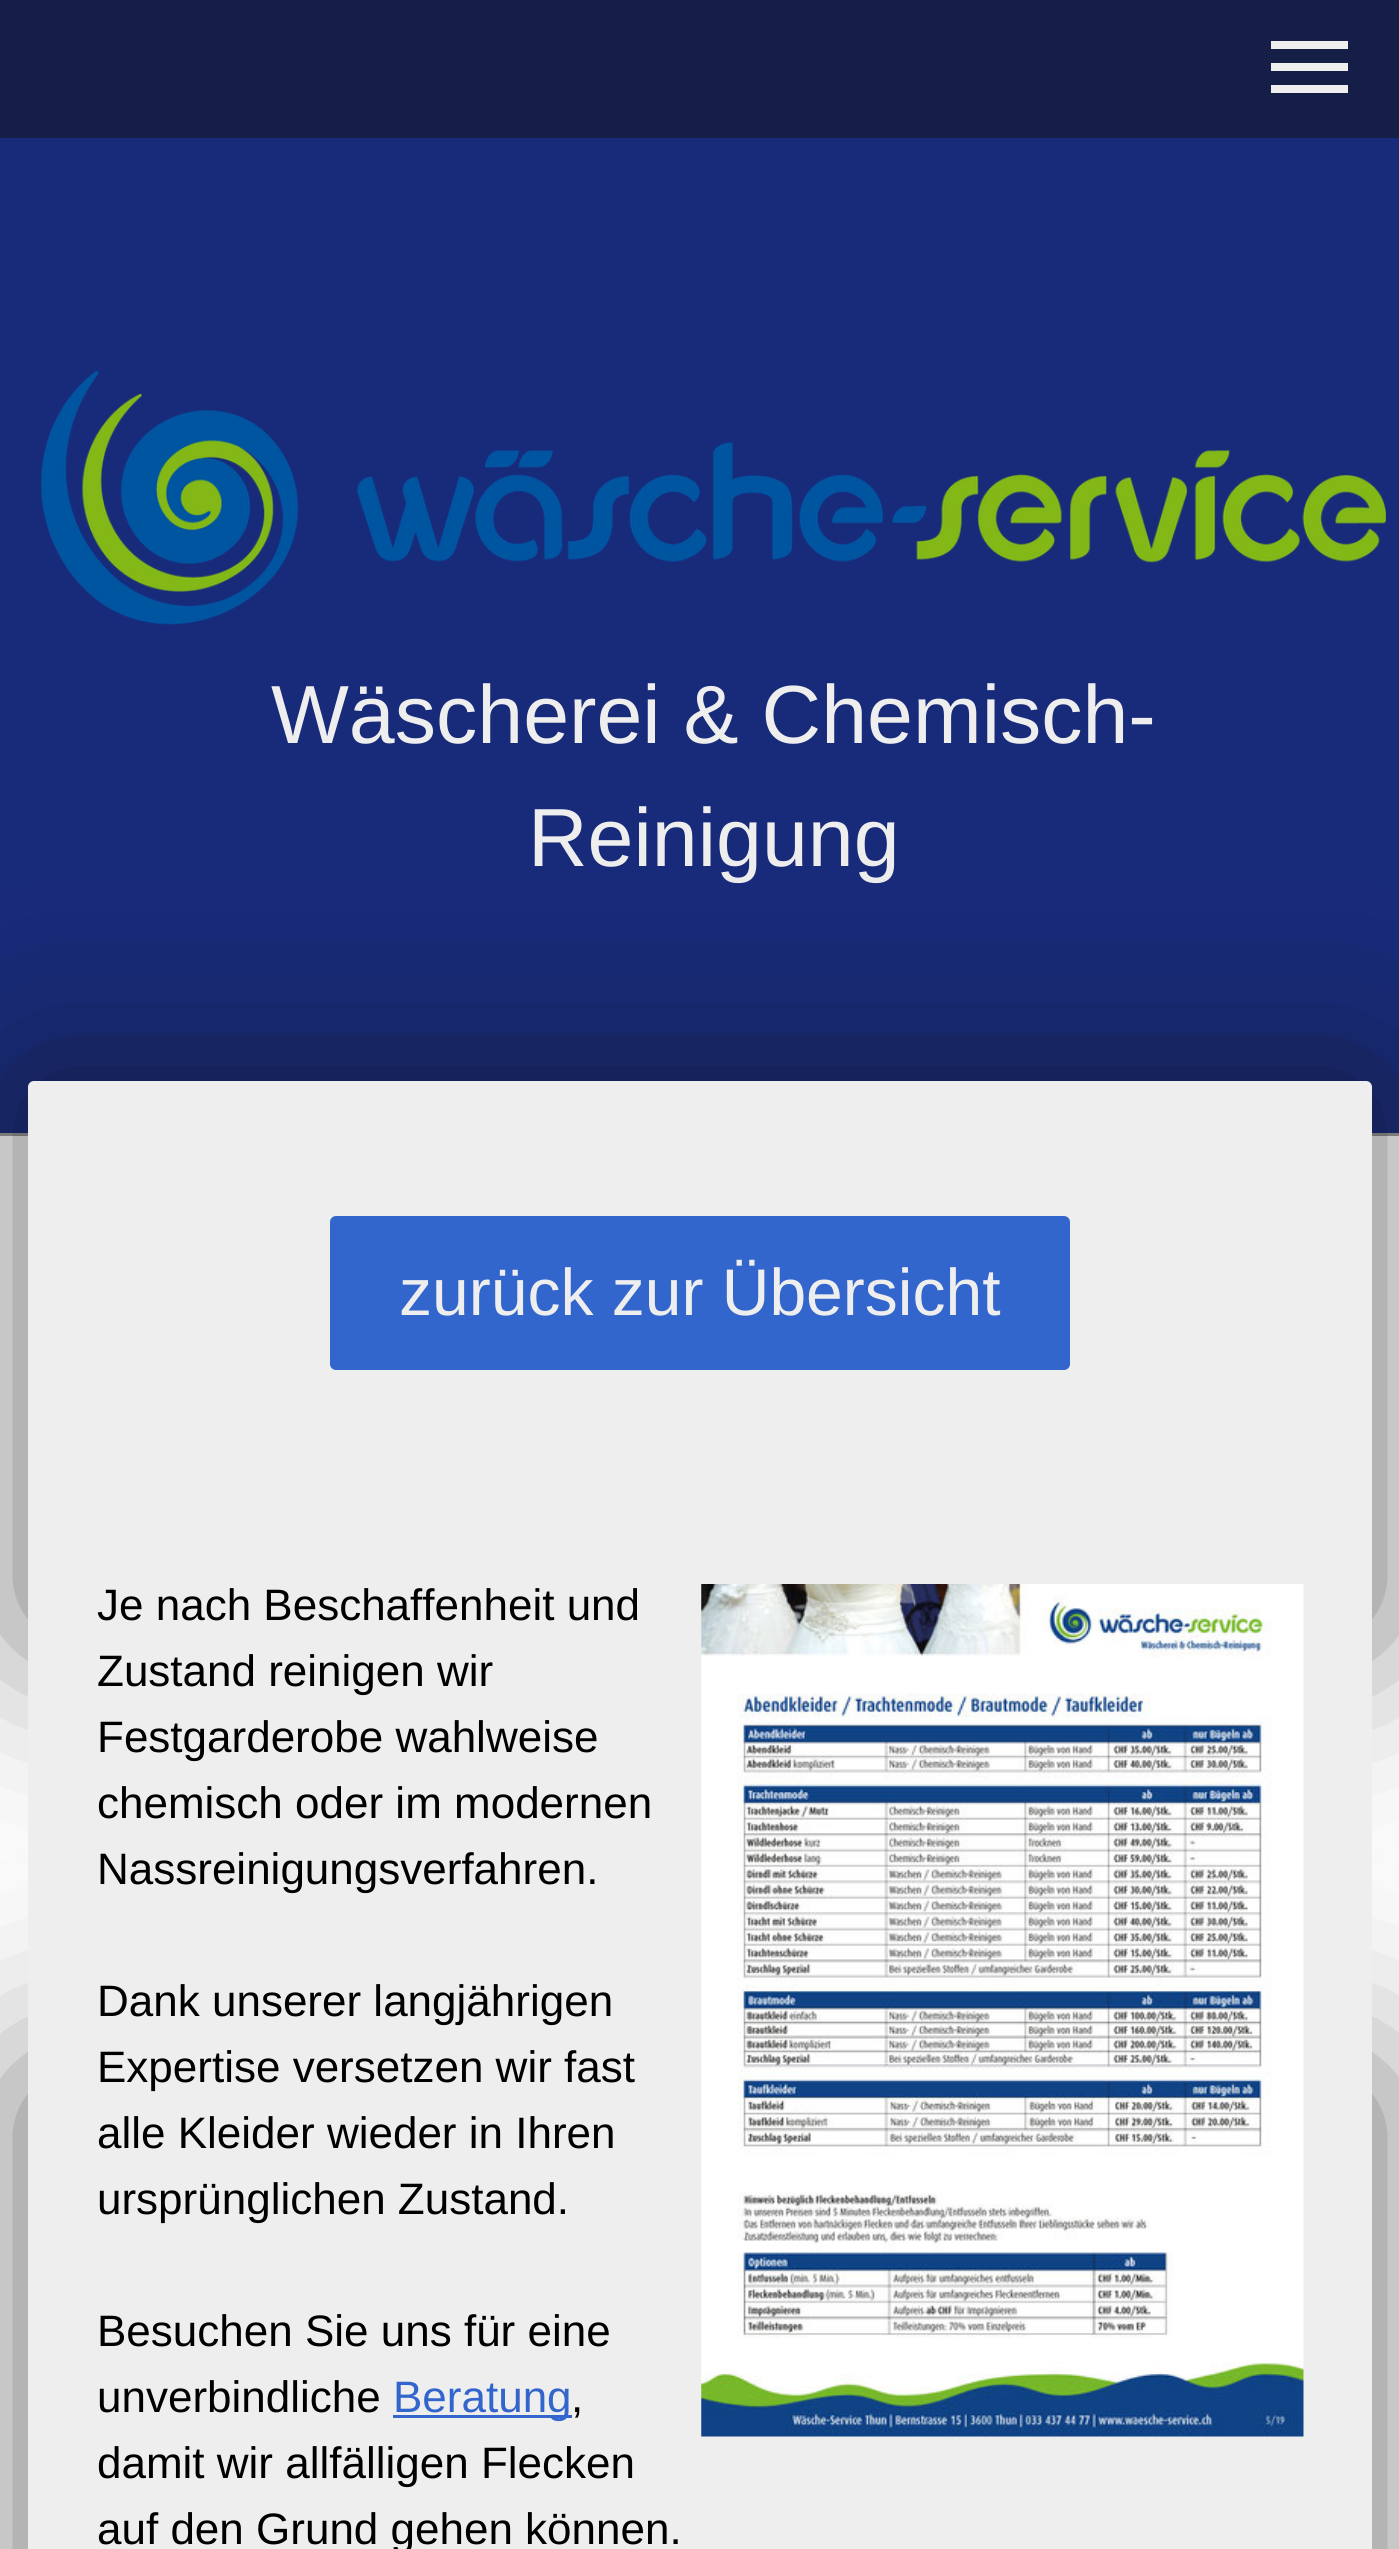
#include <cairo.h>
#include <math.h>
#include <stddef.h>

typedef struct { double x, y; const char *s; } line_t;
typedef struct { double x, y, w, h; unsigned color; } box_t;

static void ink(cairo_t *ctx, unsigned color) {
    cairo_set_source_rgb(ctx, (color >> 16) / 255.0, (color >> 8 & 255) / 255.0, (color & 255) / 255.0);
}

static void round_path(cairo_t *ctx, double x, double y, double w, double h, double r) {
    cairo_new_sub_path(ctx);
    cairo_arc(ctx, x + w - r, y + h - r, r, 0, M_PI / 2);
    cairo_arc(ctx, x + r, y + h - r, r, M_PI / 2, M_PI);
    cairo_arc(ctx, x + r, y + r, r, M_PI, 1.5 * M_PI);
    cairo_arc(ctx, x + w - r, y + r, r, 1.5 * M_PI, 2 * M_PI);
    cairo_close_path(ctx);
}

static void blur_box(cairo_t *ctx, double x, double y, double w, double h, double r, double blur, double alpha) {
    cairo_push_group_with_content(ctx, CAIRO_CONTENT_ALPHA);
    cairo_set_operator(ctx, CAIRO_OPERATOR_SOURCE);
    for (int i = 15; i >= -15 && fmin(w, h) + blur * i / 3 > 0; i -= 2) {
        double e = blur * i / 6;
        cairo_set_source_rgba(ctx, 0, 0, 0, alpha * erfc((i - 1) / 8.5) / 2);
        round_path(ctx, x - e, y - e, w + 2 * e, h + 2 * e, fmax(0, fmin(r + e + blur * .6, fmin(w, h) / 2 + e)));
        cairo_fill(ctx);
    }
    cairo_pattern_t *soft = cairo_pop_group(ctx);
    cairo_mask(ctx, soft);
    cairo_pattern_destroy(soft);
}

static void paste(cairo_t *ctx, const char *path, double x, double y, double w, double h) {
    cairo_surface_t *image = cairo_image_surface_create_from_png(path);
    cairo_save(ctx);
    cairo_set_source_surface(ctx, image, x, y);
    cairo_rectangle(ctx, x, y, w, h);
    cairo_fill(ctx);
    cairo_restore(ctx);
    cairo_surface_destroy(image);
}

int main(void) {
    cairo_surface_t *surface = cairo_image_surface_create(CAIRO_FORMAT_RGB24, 1399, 2549);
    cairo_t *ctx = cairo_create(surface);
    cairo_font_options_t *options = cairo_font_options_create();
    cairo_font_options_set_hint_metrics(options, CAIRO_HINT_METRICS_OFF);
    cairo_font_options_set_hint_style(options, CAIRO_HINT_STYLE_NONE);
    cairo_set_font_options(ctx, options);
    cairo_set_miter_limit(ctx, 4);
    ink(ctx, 0xFAFAFA);
    cairo_paint(ctx);
    {
        static const box_t items[] = {
            {0, 138, 1399, 995, 0x182A7A},
            {0, 0, 1399, 138, 0x151E46},
            {1271, 63, 77, 8, 0xEEEEEE},
            {1271, 41, 77, 8, 0xEEEEEE},
            {1271, 85, 77, 8, 0xEEEEEE},
        };
        for (size_t i = 0; i < sizeof items / sizeof *items; i++) {
            ink(ctx, items[i].color);
            cairo_rectangle(ctx, items[i].x, items[i].y, items[i].w, items[i].h);
            cairo_fill(ctx);
        }
    }
    paste(ctx, "media/1.png", 41, 371, 1345, 254);
    cairo_select_font_face(ctx, "Liberation Sans", CAIRO_FONT_SLANT_NORMAL, CAIRO_FONT_WEIGHT_NORMAL);
    cairo_set_font_size(ctx, 82.5);
    cairo_move_to(ctx, 271, 743);
    cairo_show_text(ctx, "Wäscherei & Chemisch-");
    cairo_move_to(ctx, 528, 866);
    cairo_show_text(ctx, "Reinigung");
    ink(ctx, 0x999999);
    cairo_rectangle(ctx, 0, 1133, 1399, 3);
    cairo_fill(ctx);
    ink(ctx, 0x111111);
    blur_box(ctx, 28, 1081, 1344, 550, 0, 93.5, 0.6);
    blur_box(ctx, 28, 2082, 1344, 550, 0, 93.5, 0.6);
    ink(ctx, 0xEEEEEE);
    round_path(ctx, 28, 1081, 1344, 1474, 6);
    cairo_fill(ctx);
    ink(ctx, 0x3366CC);
    round_path(ctx, 331.5, 1217.5, 737, 151, 4.5);
    cairo_fill_preserve(ctx);
    cairo_set_line_width(ctx, 3);
    cairo_stroke(ctx);
    cairo_set_font_size(ctx, 66);
    ink(ctx, 0xEEEEEE);
    cairo_move_to(ctx, 399, 1315);
    cairo_show_text(ctx, "zurück zur Übersicht");
    cairo_set_font_size(ctx, 44);
    ink(ctx, 0x000000);
    {
        static const line_t items[] = {
            {97, 1620, "Je nach Beschaffenheit und"},
            {97, 1686, "Zustand reinigen wir"},
            {97, 1752, "Festgarderobe wahlweise"},
            {97, 1818, "chemisch oder im modernen"},
            {97, 1884, "Nassreinigungsverfahren."},
            {97, 2016, "Dank unserer langjährigen"},
            {97, 2082, "Expertise versetzen wir fast"},
            {97, 2148, "alle Kleider wieder in Ihren"},
            {97, 2214, "ursprünglichen Zustand."},
            {97, 2346, "Besuchen Sie uns für eine"},
            {97, 2412, "unverbindliche"},
        };
        for (size_t i = 0; i < sizeof items / sizeof *items; i++) {
            cairo_move_to(ctx, items[i].x, items[i].y);
            cairo_show_text(ctx, items[i].s);
        }
    }
    ink(ctx, 0x3366CC);
    cairo_rectangle(ctx, 393, 2415, 179, 3);
    cairo_fill(ctx);
    cairo_move_to(ctx, 393, 2412);
    cairo_show_text(ctx, "Beratung");
    ink(ctx, 0x000000);
    {
        static const line_t items[] = {
            {571, 2412, ","},
            {97, 2478, "damit wir allfälligen Flecken"},
            {97, 2544, "auf den Grund gehen können."},
        };
        for (size_t i = 0; i < sizeof items / sizeof *items; i++) {
            cairo_move_to(ctx, items[i].x, items[i].y);
            cairo_show_text(ctx, items[i].s);
        }
    }
    paste(ctx, "media/2.png", 701, 1584, 603, 853);
    cairo_surface_write_to_png(surface, "image.png");
    cairo_font_options_destroy(options);
    cairo_destroy(ctx);
    cairo_surface_destroy(surface);
    return 0;
}
